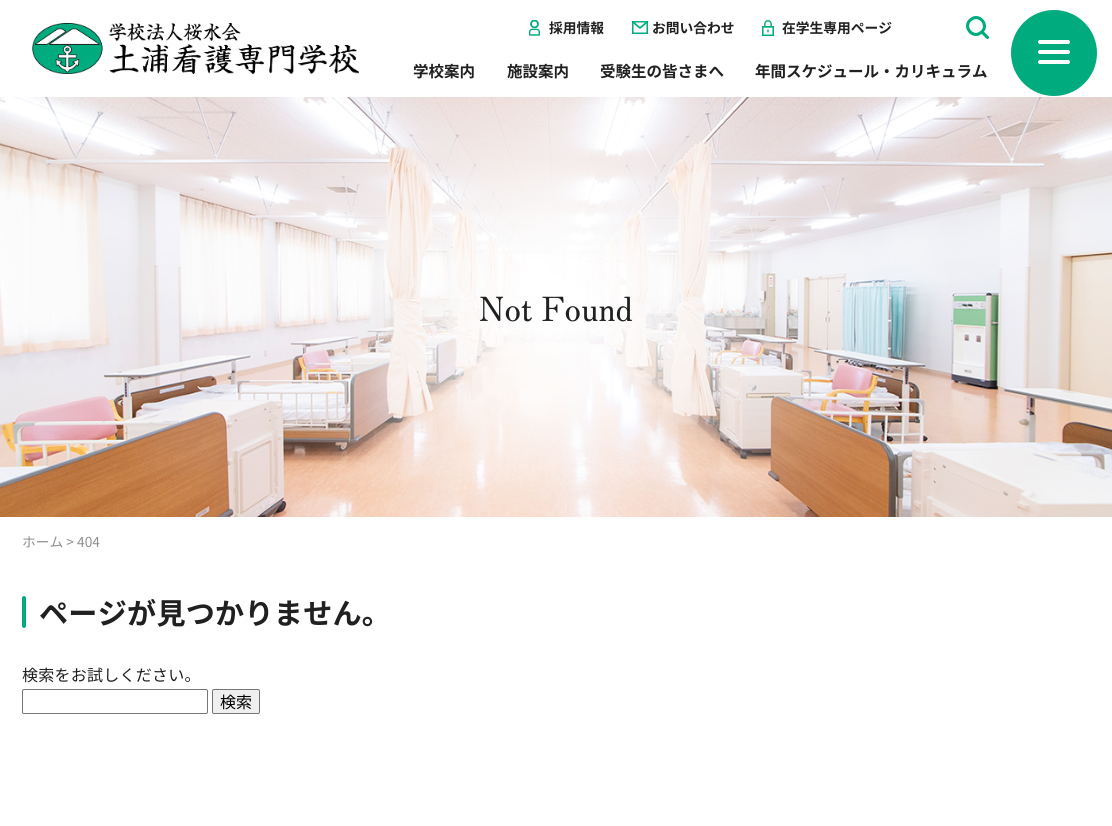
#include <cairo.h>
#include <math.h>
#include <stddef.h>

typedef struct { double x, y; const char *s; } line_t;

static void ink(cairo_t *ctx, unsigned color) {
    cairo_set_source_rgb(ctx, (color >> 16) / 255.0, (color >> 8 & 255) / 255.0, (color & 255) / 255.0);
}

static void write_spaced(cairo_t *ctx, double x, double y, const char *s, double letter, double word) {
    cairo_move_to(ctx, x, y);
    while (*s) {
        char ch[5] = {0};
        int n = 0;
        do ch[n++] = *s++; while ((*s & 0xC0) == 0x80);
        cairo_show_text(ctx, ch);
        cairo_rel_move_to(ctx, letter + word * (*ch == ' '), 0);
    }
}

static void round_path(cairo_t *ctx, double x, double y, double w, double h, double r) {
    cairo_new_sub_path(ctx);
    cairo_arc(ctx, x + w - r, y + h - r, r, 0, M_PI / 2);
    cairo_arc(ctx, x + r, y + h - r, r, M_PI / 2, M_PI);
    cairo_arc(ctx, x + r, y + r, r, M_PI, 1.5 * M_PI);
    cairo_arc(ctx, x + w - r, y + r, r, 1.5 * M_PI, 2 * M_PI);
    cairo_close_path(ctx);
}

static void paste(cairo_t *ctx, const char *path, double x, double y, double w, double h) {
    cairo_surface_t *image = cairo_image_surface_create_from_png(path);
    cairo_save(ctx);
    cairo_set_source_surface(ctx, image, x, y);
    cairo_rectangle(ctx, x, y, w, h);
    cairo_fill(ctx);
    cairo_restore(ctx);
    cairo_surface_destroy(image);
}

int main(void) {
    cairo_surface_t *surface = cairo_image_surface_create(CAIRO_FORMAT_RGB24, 1112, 826);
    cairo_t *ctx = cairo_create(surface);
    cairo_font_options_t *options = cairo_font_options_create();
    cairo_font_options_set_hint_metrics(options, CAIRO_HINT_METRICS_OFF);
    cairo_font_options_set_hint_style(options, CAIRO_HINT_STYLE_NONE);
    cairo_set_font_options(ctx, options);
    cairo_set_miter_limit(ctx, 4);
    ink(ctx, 0xFFFFFF);
    cairo_paint(ctx);
    paste(ctx, "media/1.png", 32, 23, 327, 51);
    paste(ctx, "media/2.png", 529, 20, 11, 16);
    cairo_select_font_face(ctx, "Noto Sans JP", CAIRO_FONT_SLANT_NORMAL, CAIRO_FONT_WEIGHT_BOLD);
    cairo_set_font_size(ctx, 13.75);
    ink(ctx, 0x202020);
    cairo_move_to(ctx, 549, 33);
    cairo_show_text(ctx, "採用情報");
    cairo_rectangle(ctx, 632.75, 21.75, 14.5, 11.5);
    ink(ctx, 0x00AB7D);
    cairo_set_line_width(ctx, 1.5);
    cairo_stroke(ctx);
    cairo_new_path(ctx);
    cairo_move_to(ctx, 633, 22);
    cairo_line_to(ctx, 640, 28);
    cairo_line_to(ctx, 647, 22);
    cairo_set_line_width(ctx, 1.7);
    cairo_set_line_cap(ctx, CAIRO_LINE_CAP_ROUND);
    cairo_set_line_join(ctx, CAIRO_LINE_JOIN_ROUND);
    cairo_stroke(ctx);
    ink(ctx, 0x202020);
    cairo_move_to(ctx, 652, 33);
    cairo_show_text(ctx, "お問い合わせ");
    paste(ctx, "media/3.png", 762, 20, 12, 16);
    cairo_move_to(ctx, 782, 33);
    cairo_show_text(ctx, "在学生専用ページ");
    cairo_new_path(ctx);
    cairo_move_to(ctx, 971, 19.5);
    cairo_curve_to(ctx, 979.5, 12.5, 990, 26, 981, 32.5);
    cairo_curve_to(ctx, 972.5, 39.5, 962, 26, 971, 19.5);
    cairo_close_path(ctx);
    cairo_move_to(ctx, 982, 32);
    cairo_line_to(ctx, 987.5, 37.5);
    ink(ctx, 0x00AB7D);
    cairo_set_line_width(ctx, 3.1);
    cairo_stroke(ctx);
    cairo_set_font_size(ctx, 15.5);
    ink(ctx, 0x202020);
    {
        static const line_t items[] = {
            {413, 77, "学校案内"},
            {507, 77, "施設案内"},
            {600, 77, "受験生の皆さまへ"},
            {755, 77, "年間スケジュール・カリキュラム"},
        };
        for (size_t i = 0; i < sizeof items / sizeof *items; i++) {
            cairo_move_to(ctx, items[i].x, items[i].y);
            cairo_show_text(ctx, items[i].s);
        }
    }
    ink(ctx, 0x00AB7D);
    cairo_new_path(ctx);
    cairo_arc(ctx, 1054, 53, 43, 0, 2 * M_PI);
    cairo_fill(ctx);
    ink(ctx, 0xFFFFFF);
    round_path(ctx, 1038, 50, 32, 4, 2);
    cairo_fill(ctx);
    round_path(ctx, 1038, 40, 32, 4, 2);
    cairo_fill(ctx);
    round_path(ctx, 1038, 60, 32, 4, 2);
    cairo_fill(ctx);
    paste(ctx, "media/4.png", 0, 97, 1112, 420);
    cairo_select_font_face(ctx, "Zen Old Mincho", CAIRO_FONT_SLANT_NORMAL, CAIRO_FONT_WEIGHT_NORMAL);
    cairo_set_font_size(ctx, 33.5);
    ink(ctx, 0x202020);
    cairo_move_to(ctx, 479, 321);
    cairo_show_text(ctx, "Not Found");
    cairo_select_font_face(ctx, "Noto Sans JP", CAIRO_FONT_SLANT_NORMAL, CAIRO_FONT_WEIGHT_NORMAL);
    cairo_set_font_size(ctx, 13.75);
    ink(ctx, 0x8F8F8F);
    cairo_move_to(ctx, 22, 547);
    cairo_show_text(ctx, "ホーム > 404");
    ink(ctx, 0x00AB7D);
    round_path(ctx, 22, 596, 4, 32, 2);
    cairo_fill(ctx);
    cairo_select_font_face(ctx, "Noto Sans JP", CAIRO_FONT_SLANT_NORMAL, CAIRO_FONT_WEIGHT_BOLD);
    cairo_set_font_size(ctx, 29.1);
    ink(ctx, 0x202020);
    write_spaced(ctx, 39, 624, "ページが見つかりません。", 0.25, 0);
    cairo_select_font_face(ctx, "Noto Sans JP", CAIRO_FONT_SLANT_NORMAL, CAIRO_FONT_WEIGHT_NORMAL);
    cairo_set_font_size(ctx, 16);
    write_spaced(ctx, 22, 681, "検索をお試しください。", 0.25, 0);
    round_path(ctx, 22.5, 689.5, 185, 24, 1.5);
    ink(ctx, 0x767676);
    cairo_set_line_width(ctx, 1);
    cairo_set_line_cap(ctx, CAIRO_LINE_CAP_BUTT);
    cairo_set_line_join(ctx, CAIRO_LINE_JOIN_MITER);
    cairo_stroke(ctx);
    ink(ctx, 0xEFEFEF);
    round_path(ctx, 212.5, 689.5, 47, 24, 1.5);
    cairo_fill_preserve(ctx);
    ink(ctx, 0x767676);
    cairo_stroke(ctx);
    ink(ctx, 0x000000);
    cairo_move_to(ctx, 220, 708);
    cairo_show_text(ctx, "検索");
    cairo_surface_write_to_png(surface, "image.png");
    cairo_font_options_destroy(options);
    cairo_destroy(ctx);
    cairo_surface_destroy(surface);
    return 0;
}
